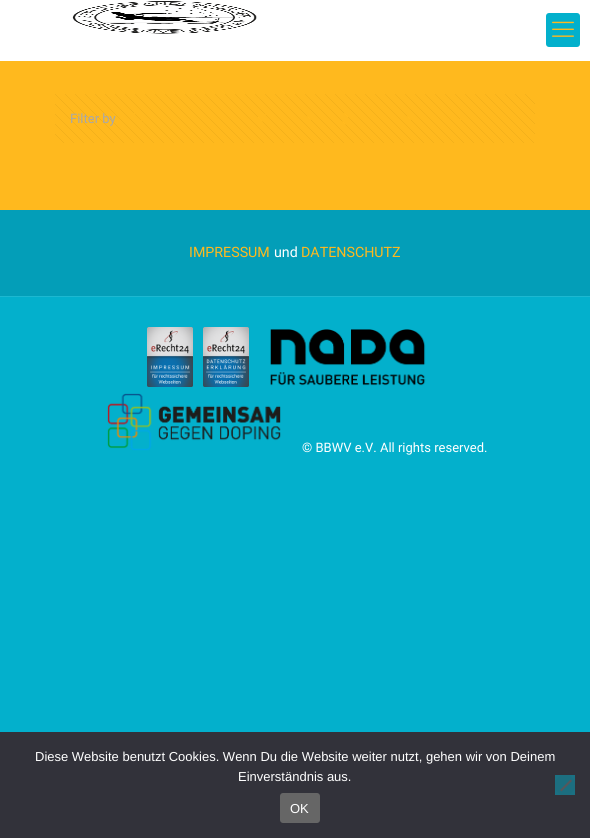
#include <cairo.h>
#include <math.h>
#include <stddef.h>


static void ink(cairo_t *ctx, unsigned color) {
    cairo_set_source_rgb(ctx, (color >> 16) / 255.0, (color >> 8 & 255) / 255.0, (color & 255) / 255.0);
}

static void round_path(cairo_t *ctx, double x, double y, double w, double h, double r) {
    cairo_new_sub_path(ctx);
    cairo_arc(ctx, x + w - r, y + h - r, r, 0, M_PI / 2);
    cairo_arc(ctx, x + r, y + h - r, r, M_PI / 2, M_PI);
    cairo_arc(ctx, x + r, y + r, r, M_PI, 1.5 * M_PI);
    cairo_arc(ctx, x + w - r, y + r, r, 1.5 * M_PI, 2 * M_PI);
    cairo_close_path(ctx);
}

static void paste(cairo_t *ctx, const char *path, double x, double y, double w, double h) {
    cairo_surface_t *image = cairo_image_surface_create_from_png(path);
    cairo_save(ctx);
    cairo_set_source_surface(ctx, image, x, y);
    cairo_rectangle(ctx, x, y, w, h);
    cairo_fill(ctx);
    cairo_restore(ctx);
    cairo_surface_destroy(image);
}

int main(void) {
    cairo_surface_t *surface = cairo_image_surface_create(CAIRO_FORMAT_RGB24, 590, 838);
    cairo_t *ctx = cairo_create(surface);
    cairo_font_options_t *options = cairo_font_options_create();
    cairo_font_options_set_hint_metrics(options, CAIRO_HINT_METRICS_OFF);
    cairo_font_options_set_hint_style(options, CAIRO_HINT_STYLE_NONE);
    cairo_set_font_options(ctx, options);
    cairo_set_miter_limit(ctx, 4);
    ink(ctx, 0x03B0CC);
    cairo_paint(ctx);
    ink(ctx, 0xFFB91E);
    cairo_rectangle(ctx, 0, 61, 590, 149);
    cairo_fill(ctx);
    ink(ctx, 0xFFFFFF);
    cairo_rectangle(ctx, 0, 0, 590, 61);
    cairo_fill(ctx);
    paste(ctx, "media/1.png", 72, 1, 185, 33);
    ink(ctx, 0x03B0CC);
    round_path(ctx, 546, 13, 34, 34, 3);
    cairo_fill(ctx);
    paste(ctx, "media/2.png", 552, 21, 22, 16);
    paste(ctx, "media/3.png", 55, 94, 480, 49);
    cairo_select_font_face(ctx, "Roboto", CAIRO_FONT_SLANT_NORMAL, CAIRO_FONT_WEIGHT_NORMAL);
    cairo_set_font_size(ctx, 13);
    ink(ctx, 0xA8A8A8);
    cairo_move_to(ctx, 70, 123);
    cairo_show_text(ctx, "Filter by");
    paste(ctx, "media/4.png", 134, 113, 11, 11);
    paste(ctx, "media/5.png", 258, 114, 8, 8);
    ink(ctx, 0xFFB91E);
    cairo_new_path(ctx);
    cairo_move_to(ctx, 313, 116);
    cairo_line_to(ctx, 310, 121);
    cairo_line_to(ctx, 307, 116);
    cairo_close_path(ctx);
    cairo_fill(ctx);
    paste(ctx, "media/6.png", 342, 113, 6, 12);
    cairo_new_path(ctx);
    cairo_move_to(ctx, 413, 116);
    cairo_line_to(ctx, 410, 121);
    cairo_line_to(ctx, 407, 116);
    cairo_close_path(ctx);
    cairo_fill(ctx);
    ink(ctx, 0xFDB81E);
    cairo_rectangle(ctx, 460, 119, 1, 1);
    cairo_fill(ctx);
    ink(ctx, 0x039EB8);
    cairo_rectangle(ctx, 0, 210, 590, 86);
    cairo_fill(ctx);
    cairo_set_font_size(ctx, 14.25);
    ink(ctx, 0xFFB91E);
    cairo_move_to(ctx, 189, 257);
    cairo_show_text(ctx, "IMPRESSUM");
    ink(ctx, 0xFFFFFF);
    cairo_move_to(ctx, 274, 257);
    cairo_show_text(ctx, "und");
    ink(ctx, 0xFFB91E);
    cairo_move_to(ctx, 301, 257);
    cairo_show_text(ctx, "DATENSCHUTZ");
    ink(ctx, 0x1CB8D1);
    cairo_rectangle(ctx, 0, 296, 590, 1);
    cairo_fill(ctx);
    paste(ctx, "media/7.png", 147, 327, 46, 60);
    paste(ctx, "media/8.png", 203, 327, 46, 60);
    paste(ctx, "media/9.png", 270, 329, 156, 57);
    paste(ctx, "media/10.png", 107, 393, 174, 58);
    cairo_set_font_size(ctx, 13);
    ink(ctx, 0xFFFFFF);
    cairo_move_to(ctx, 302, 452);
    cairo_show_text(ctx, "© BBWV e.V. All rights reserved.");
    ink(ctx, 0x32323A);
    cairo_rectangle(ctx, 0, 732, 590, 106);
    cairo_fill(ctx);
    cairo_select_font_face(ctx, "Liberation Sans", CAIRO_FONT_SLANT_NORMAL, CAIRO_FONT_WEIGHT_NORMAL);
    ink(ctx, 0xFFFFFF);
    cairo_move_to(ctx, 35, 761);
    cairo_show_text(ctx, "Diese Website benutzt Cookies. Wenn Du die Website weiter nutzt, gehen wir von Deinem");
    cairo_move_to(ctx, 238, 781);
    cairo_show_text(ctx, "Einverständnis aus.");
    ink(ctx, 0x1B7183);
    cairo_rectangle(ctx, 555, 775, 20, 20);
    cairo_fill(ctx);
    ink(ctx, 0x59595D);
    cairo_new_path(ctx);
    cairo_move_to(ctx, 570.5, 779.5);
    cairo_line_to(ctx, 572, 781);
    cairo_line_to(ctx, 561.5, 791.5);
    cairo_line_to(ctx, 560, 790);
    cairo_close_path(ctx);
    cairo_fill(ctx);
    cairo_set_source_rgba(ctx, 0.196, 0.196, 0.227, 0.05);
    cairo_new_path(ctx);
    cairo_move_to(ctx, 551, 785);
    cairo_line_to(ctx, 565, 771);
    cairo_line_to(ctx, 579, 785);
    cairo_line_to(ctx, 565, 799);
    cairo_close_path(ctx);
    cairo_fill(ctx);
    ink(ctx, 0x666666);
    round_path(ctx, 280, 793, 40, 30, 3);
    cairo_fill(ctx);
    ink(ctx, 0xFFFFFF);
    cairo_move_to(ctx, 290, 813);
    cairo_show_text(ctx, "OK");
    cairo_surface_write_to_png(surface, "image.png");
    cairo_font_options_destroy(options);
    cairo_destroy(ctx);
    cairo_surface_destroy(surface);
    return 0;
}
